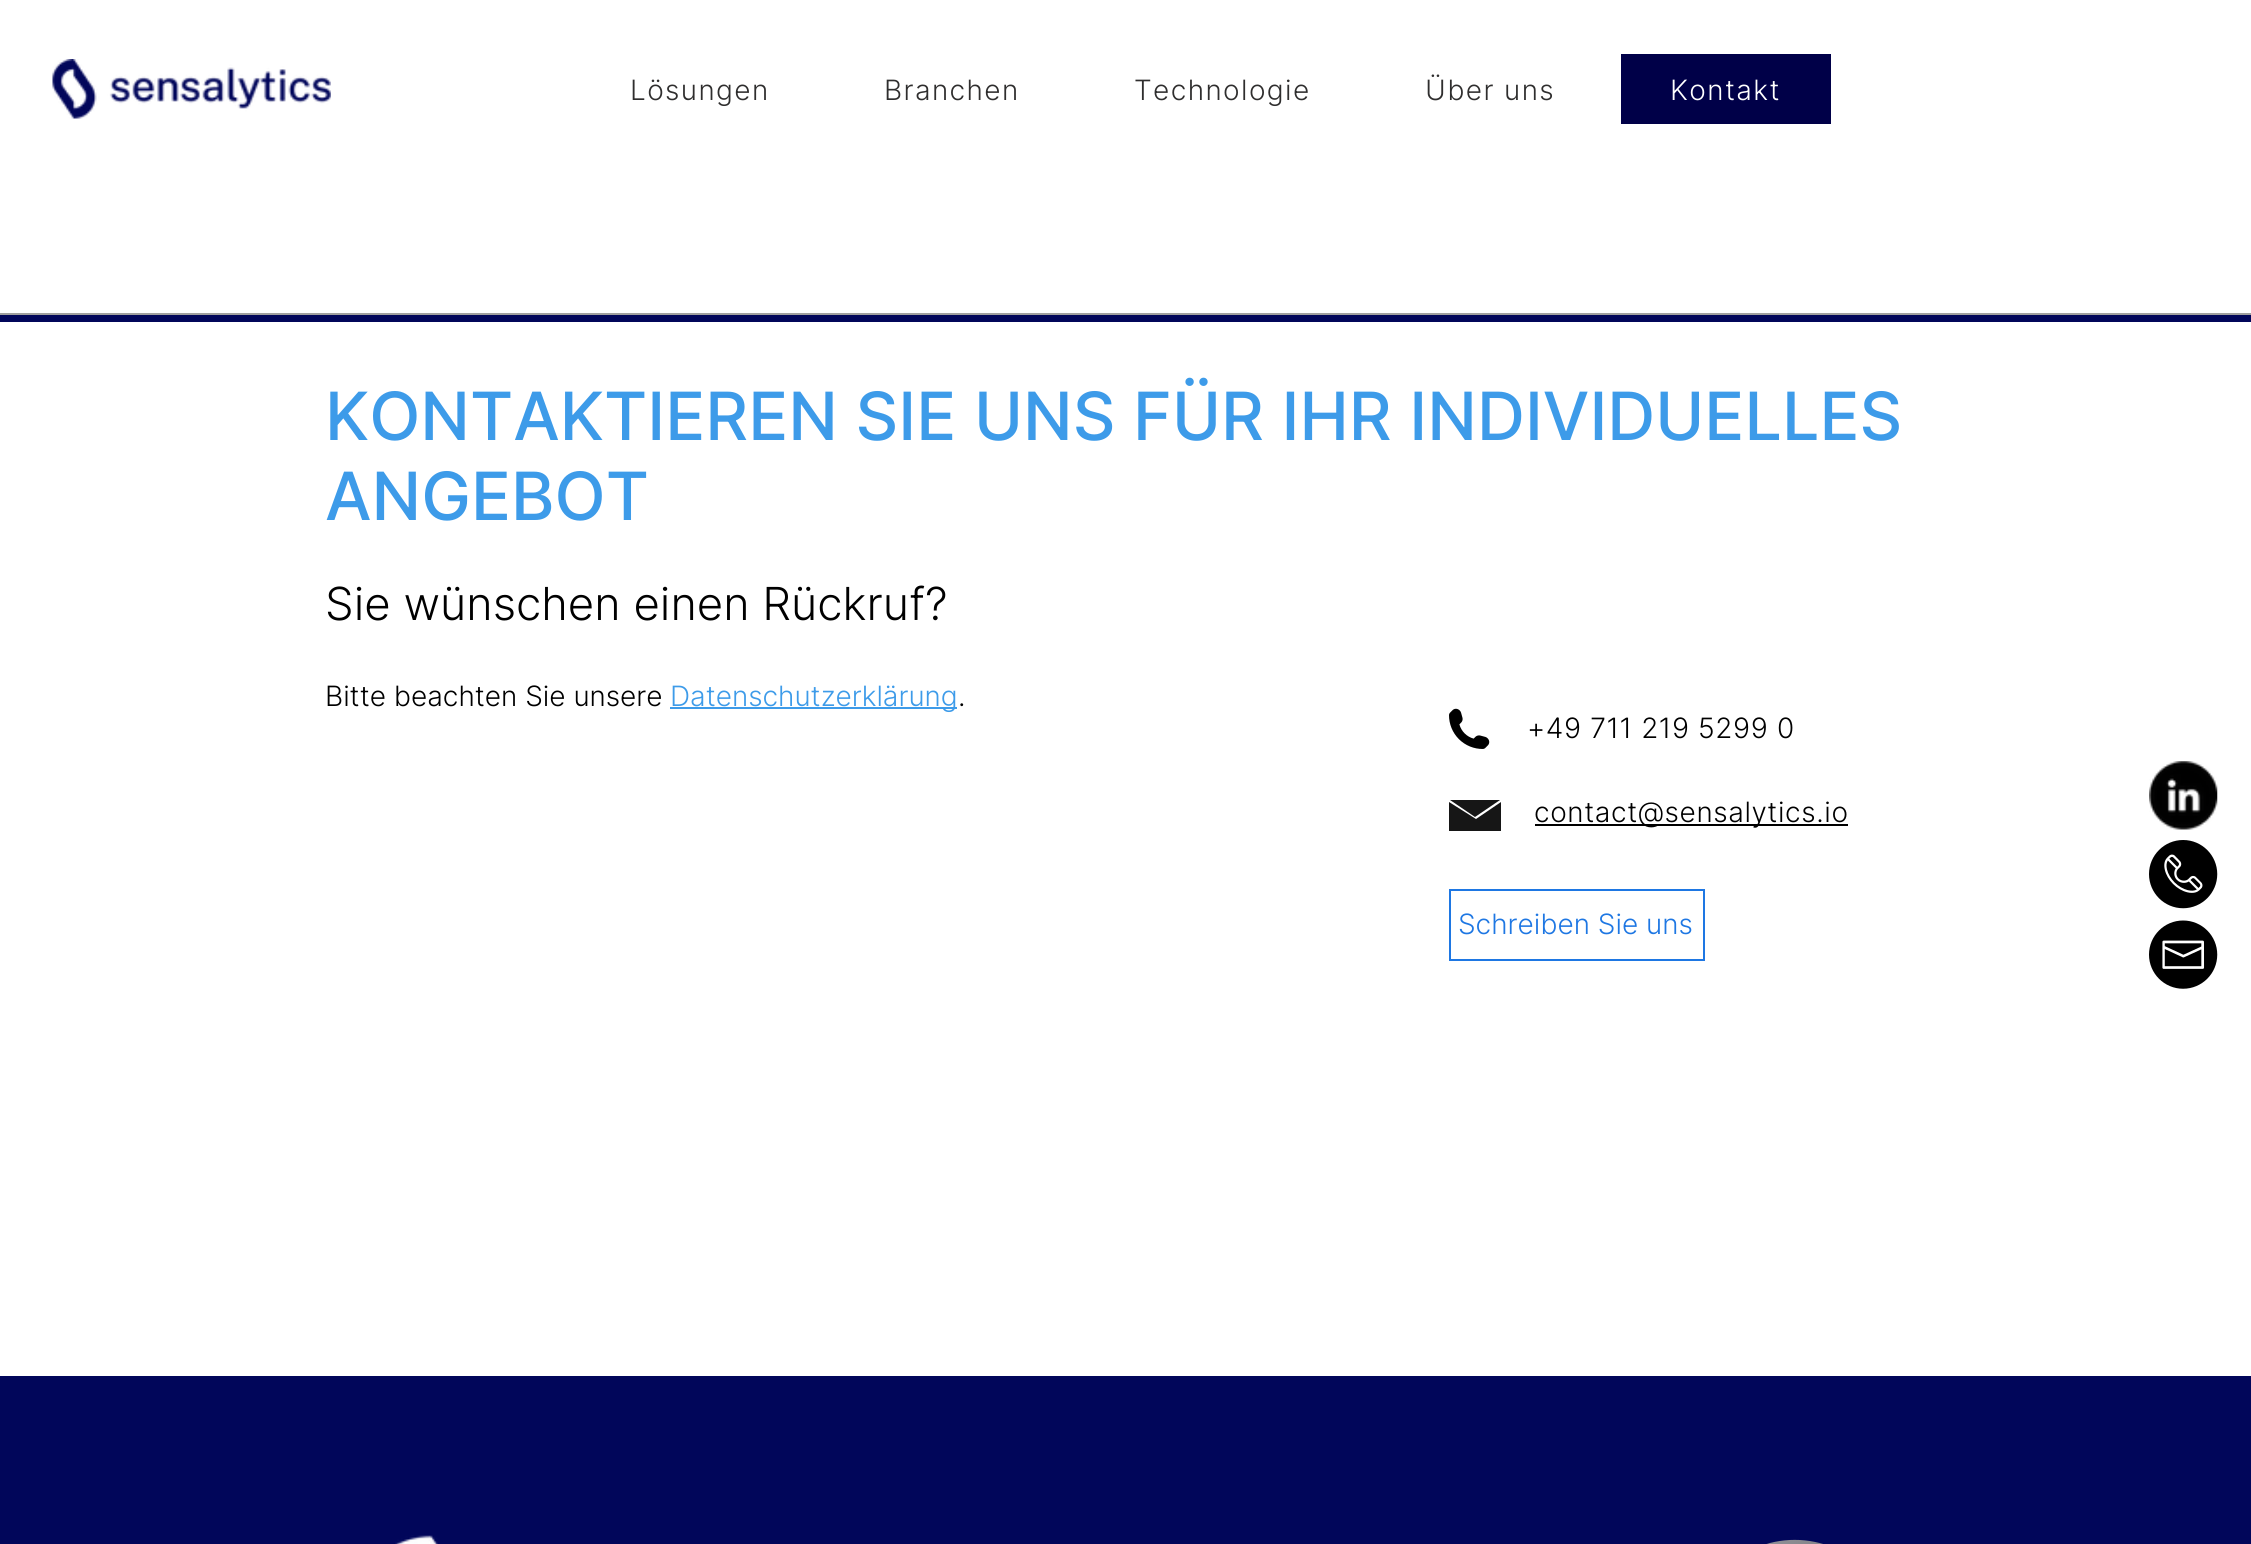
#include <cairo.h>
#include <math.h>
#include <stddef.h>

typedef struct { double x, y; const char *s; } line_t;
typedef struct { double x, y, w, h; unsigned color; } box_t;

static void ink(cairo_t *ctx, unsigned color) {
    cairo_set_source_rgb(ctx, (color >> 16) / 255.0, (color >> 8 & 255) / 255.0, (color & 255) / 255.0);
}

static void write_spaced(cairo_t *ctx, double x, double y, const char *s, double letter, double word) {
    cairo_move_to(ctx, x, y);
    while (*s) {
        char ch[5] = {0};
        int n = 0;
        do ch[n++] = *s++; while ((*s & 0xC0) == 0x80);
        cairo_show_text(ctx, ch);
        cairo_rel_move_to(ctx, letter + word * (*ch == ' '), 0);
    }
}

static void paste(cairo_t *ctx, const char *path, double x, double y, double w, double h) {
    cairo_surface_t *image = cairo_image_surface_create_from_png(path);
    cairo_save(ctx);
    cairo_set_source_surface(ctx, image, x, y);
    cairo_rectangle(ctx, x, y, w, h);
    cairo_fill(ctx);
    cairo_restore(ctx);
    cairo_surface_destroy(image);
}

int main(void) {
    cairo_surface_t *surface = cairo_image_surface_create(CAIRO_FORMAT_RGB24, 2251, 1544);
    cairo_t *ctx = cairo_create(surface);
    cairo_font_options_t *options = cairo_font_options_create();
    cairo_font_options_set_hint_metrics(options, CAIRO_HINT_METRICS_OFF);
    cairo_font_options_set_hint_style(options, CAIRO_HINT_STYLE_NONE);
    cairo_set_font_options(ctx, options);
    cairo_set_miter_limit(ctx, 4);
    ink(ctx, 0xFFFFFF);
    cairo_paint(ctx);
    paste(ctx, "media/1.png", 52, 59, 279, 60);
    cairo_select_font_face(ctx, "Inter Light", CAIRO_FONT_SLANT_NORMAL, CAIRO_FONT_WEIGHT_NORMAL);
    cairo_set_font_size(ctx, 28);
    ink(ctx, 0x2F2E2E);
    {
        static const line_t items[] = {
            {630, 100, "Lösungen"},
            {884, 100, "Branchen"},
            {1134, 100, "Technologie"},
            {1425, 100, "Über uns"},
        };
        for (size_t i = 0; i < sizeof items / sizeof *items; i++) {
            write_spaced(ctx, items[i].x, items[i].y, items[i].s, 1.4, 0);
        }
    }
    ink(ctx, 0x000048);
    cairo_rectangle(ctx, 1621, 54, 210, 70);
    cairo_fill(ctx);
    ink(ctx, 0xFFFFFF);
    write_spaced(ctx, 1670, 100, "Kontakt", 1.4, 0);
    {
        static const box_t items[] = {
            {0, 315, 2251, 1229, 0x01065A},
            {0, 313, 2251, 2, 0xA0A09F},
            {0, 322, 2251, 1054, 0xFFFFFF},
        };
        for (size_t i = 0; i < sizeof items / sizeof *items; i++) {
            ink(ctx, items[i].color);
            cairo_rectangle(ctx, items[i].x, items[i].y, items[i].w, items[i].h);
            cairo_fill(ctx);
        }
    }
    cairo_select_font_face(ctx, "Inter Medium", CAIRO_FONT_SLANT_NORMAL, CAIRO_FONT_WEIGHT_NORMAL);
    cairo_set_font_size(ctx, 66.5);
    ink(ctx, 0x3D9BE9);
    cairo_move_to(ctx, 325, 440);
    cairo_show_text(ctx, "KONTAKTIEREN SIE UNS FÜR IHR INDIVIDUELLES");
    cairo_move_to(ctx, 325, 520);
    cairo_show_text(ctx, "ANGEBOT");
    cairo_select_font_face(ctx, "Inter Light", CAIRO_FONT_SLANT_NORMAL, CAIRO_FONT_WEIGHT_NORMAL);
    cairo_set_font_size(ctx, 45.5);
    ink(ctx, 0x000000);
    cairo_move_to(ctx, 325, 620);
    cairo_show_text(ctx, "Sie wünschen einen Rückruf?");
    cairo_set_font_size(ctx, 28);
    cairo_move_to(ctx, 325, 706);
    cairo_show_text(ctx, "Bitte beachten Sie unsere");
    ink(ctx, 0x3D9BE9);
    cairo_rectangle(ctx, 670, 707, 287, 2);
    cairo_fill(ctx);
    cairo_move_to(ctx, 670, 706);
    cairo_show_text(ctx, "Datenschutzerklärung");
    ink(ctx, 0x000000);
    cairo_move_to(ctx, 958, 706);
    cairo_show_text(ctx, ".");
    paste(ctx, "media/2.png", 1449, 708, 41, 41);
    write_spaced(ctx, 1527, 738, "+49 711 219 5299 0", 0.6, 0);
    ink(ctx, 0x161616);
    cairo_new_path(ctx);
    cairo_move_to(ctx, 1475, 817);
    cairo_line_to(ctx, 1450, 800);
    cairo_line_to(ctx, 1500, 800);
    cairo_close_path(ctx);
    cairo_move_to(ctx, 1501, 802);
    cairo_line_to(ctx, 1476, 819);
    cairo_line_to(ctx, 1449, 802);
    cairo_line_to(ctx, 1449, 831);
    cairo_line_to(ctx, 1501, 831);
    cairo_close_path(ctx);
    cairo_fill(ctx);
    ink(ctx, 0x000000);
    cairo_rectangle(ctx, 1535, 824, 313, 2);
    cairo_fill(ctx);
    write_spaced(ctx, 1534, 822, "contact@sensalytics.io", 0.6, 0);
    cairo_rectangle(ctx, 1450, 890, 254, 70);
    ink(ctx, 0x1E77E3);
    cairo_stroke(ctx);
    cairo_move_to(ctx, 1458, 934);
    cairo_show_text(ctx, "Schreiben Sie uns");
    paste(ctx, "media/3.png", 395, 1535, 43, 9);
    paste(ctx, "media/4.png", 1766, 1539, 57, 5);
    paste(ctx, "media/5.png", 2149, 761, 69, 69);
    paste(ctx, "media/6.png", 2149, 840, 69, 69);
    paste(ctx, "media/7.png", 2149, 920, 69, 69);
    cairo_surface_write_to_png(surface, "image.png");
    cairo_font_options_destroy(options);
    cairo_destroy(ctx);
    cairo_surface_destroy(surface);
    return 0;
}
